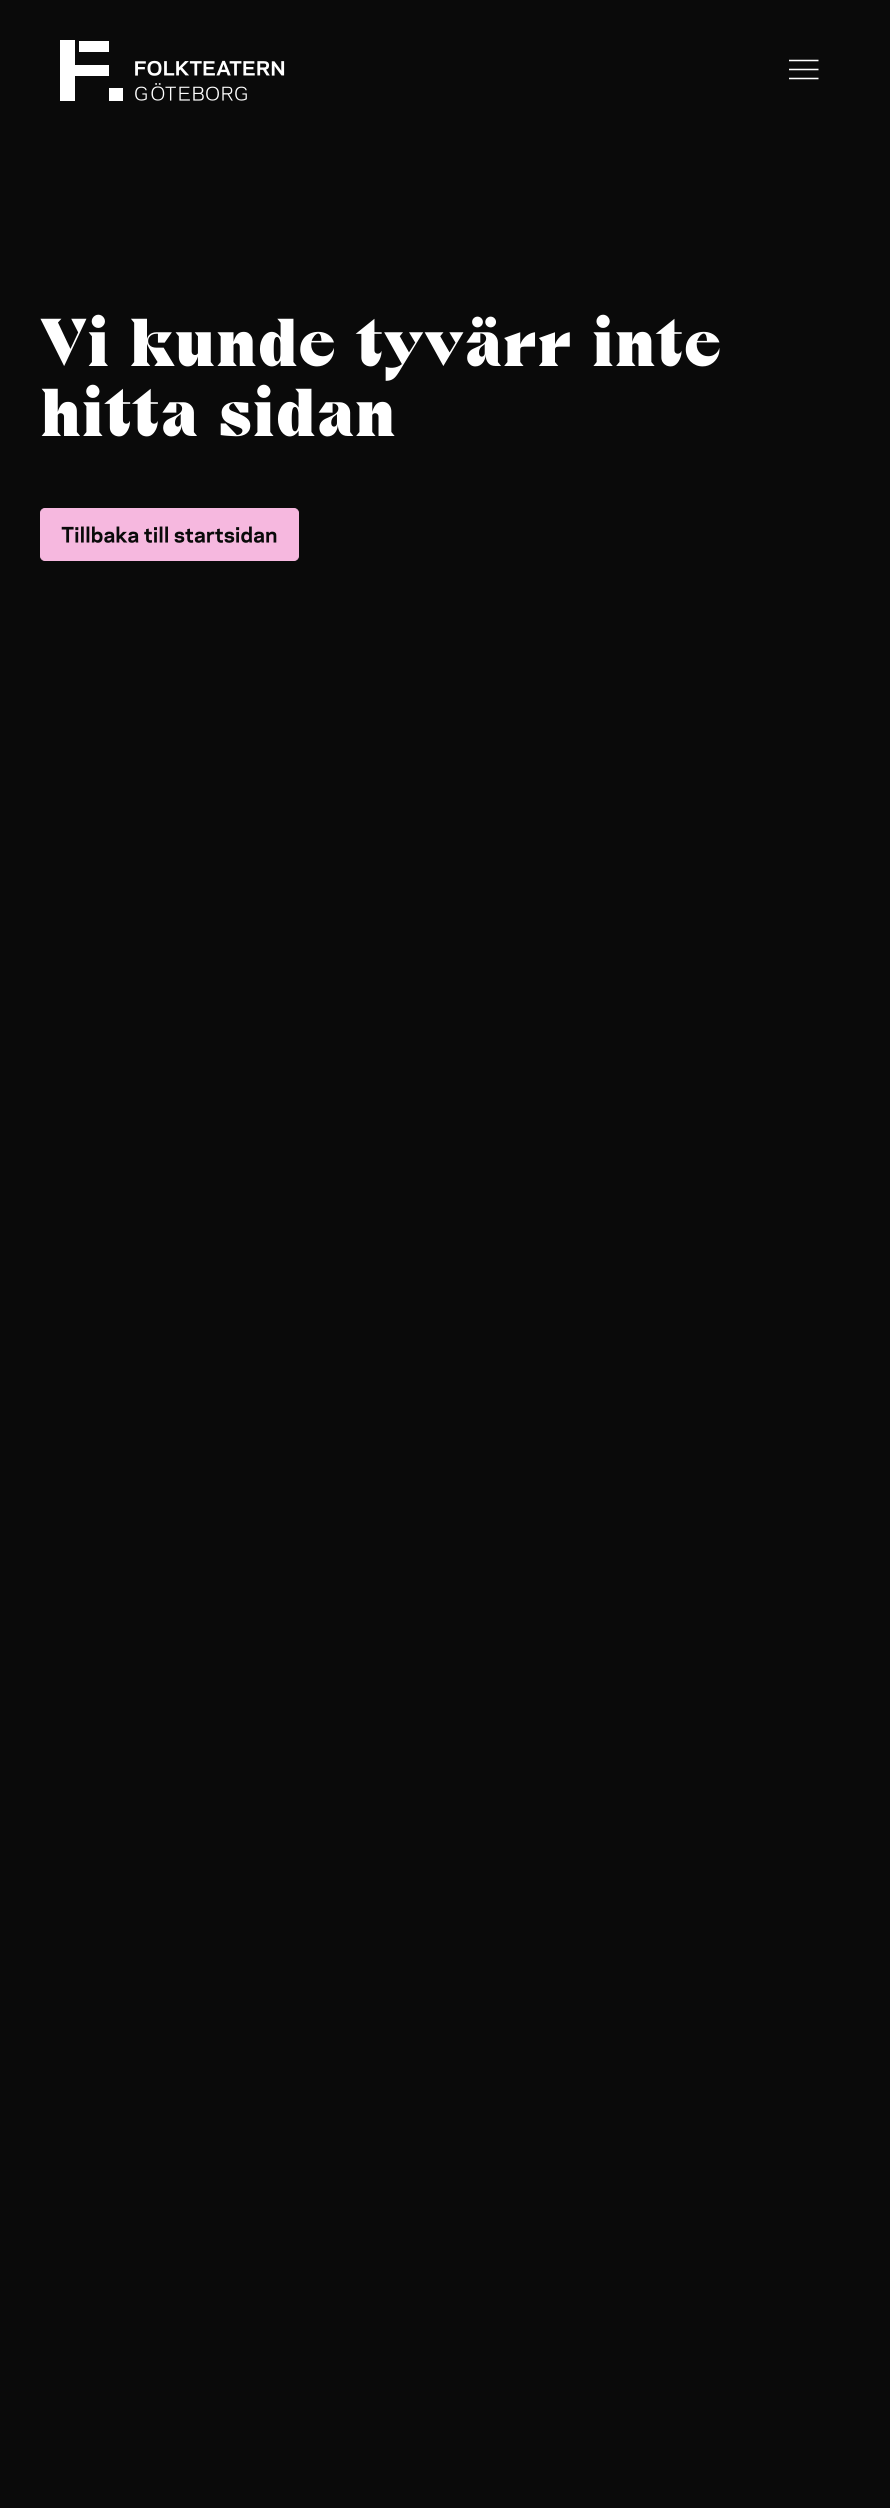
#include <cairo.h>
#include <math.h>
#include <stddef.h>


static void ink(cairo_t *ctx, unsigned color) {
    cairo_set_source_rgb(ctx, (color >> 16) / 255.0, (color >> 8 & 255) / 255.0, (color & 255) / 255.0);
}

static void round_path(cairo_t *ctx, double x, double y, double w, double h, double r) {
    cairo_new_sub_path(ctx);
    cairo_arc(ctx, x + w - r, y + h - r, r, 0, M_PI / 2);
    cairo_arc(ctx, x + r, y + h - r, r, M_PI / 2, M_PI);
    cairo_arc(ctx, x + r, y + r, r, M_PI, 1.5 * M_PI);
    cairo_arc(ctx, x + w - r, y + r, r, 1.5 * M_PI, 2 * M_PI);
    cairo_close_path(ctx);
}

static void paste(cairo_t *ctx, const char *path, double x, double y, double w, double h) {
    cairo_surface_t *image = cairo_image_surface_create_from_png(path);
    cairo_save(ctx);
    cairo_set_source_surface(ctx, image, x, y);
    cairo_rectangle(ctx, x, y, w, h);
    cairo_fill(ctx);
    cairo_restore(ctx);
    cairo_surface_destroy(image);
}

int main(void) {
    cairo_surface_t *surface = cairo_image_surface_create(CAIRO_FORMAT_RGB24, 890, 2508);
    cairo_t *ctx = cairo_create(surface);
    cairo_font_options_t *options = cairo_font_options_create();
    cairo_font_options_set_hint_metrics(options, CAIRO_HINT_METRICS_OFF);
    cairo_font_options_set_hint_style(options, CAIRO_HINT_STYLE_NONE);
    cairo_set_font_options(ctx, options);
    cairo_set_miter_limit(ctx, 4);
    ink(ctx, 0x0A0A0A);
    cairo_paint(ctx);
    paste(ctx, "media/1.png", 60, 40, 225, 61);
    cairo_new_path(ctx);
    cairo_move_to(ctx, 789, 78.5);
    cairo_line_to(ctx, 818.5, 78.5);
    cairo_move_to(ctx, 789, 69.5);
    cairo_line_to(ctx, 818.5, 69.5);
    cairo_move_to(ctx, 789, 60.5);
    cairo_line_to(ctx, 818.5, 60.5);
    ink(ctx, 0xFFFFFF);
    cairo_set_line_width(ctx, 1.5);
    cairo_set_line_join(ctx, CAIRO_LINE_JOIN_ROUND);
    cairo_stroke(ctx);
    cairo_select_font_face(ctx, "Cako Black", CAIRO_FONT_SLANT_NORMAL, CAIRO_FONT_WEIGHT_NORMAL);
    cairo_set_font_size(ctx, 67.5);
    cairo_move_to(ctx, 40, 366);
    cairo_show_text(ctx, "Vi kunde tyvärr inte");
    cairo_move_to(ctx, 40, 436);
    cairo_show_text(ctx, "hitta sidan");
    ink(ctx, 0xF6B8DF);
    round_path(ctx, 40.5, 508.5, 258, 52, 4.5);
    cairo_fill_preserve(ctx);
    cairo_set_line_width(ctx, 1);
    cairo_set_line_join(ctx, CAIRO_LINE_JOIN_MITER);
    cairo_stroke(ctx);
    paste(ctx, "media/2.png", 61, 526, 216, 17);
    cairo_surface_write_to_png(surface, "image.png");
    cairo_font_options_destroy(options);
    cairo_destroy(ctx);
    cairo_surface_destroy(surface);
    return 0;
}
